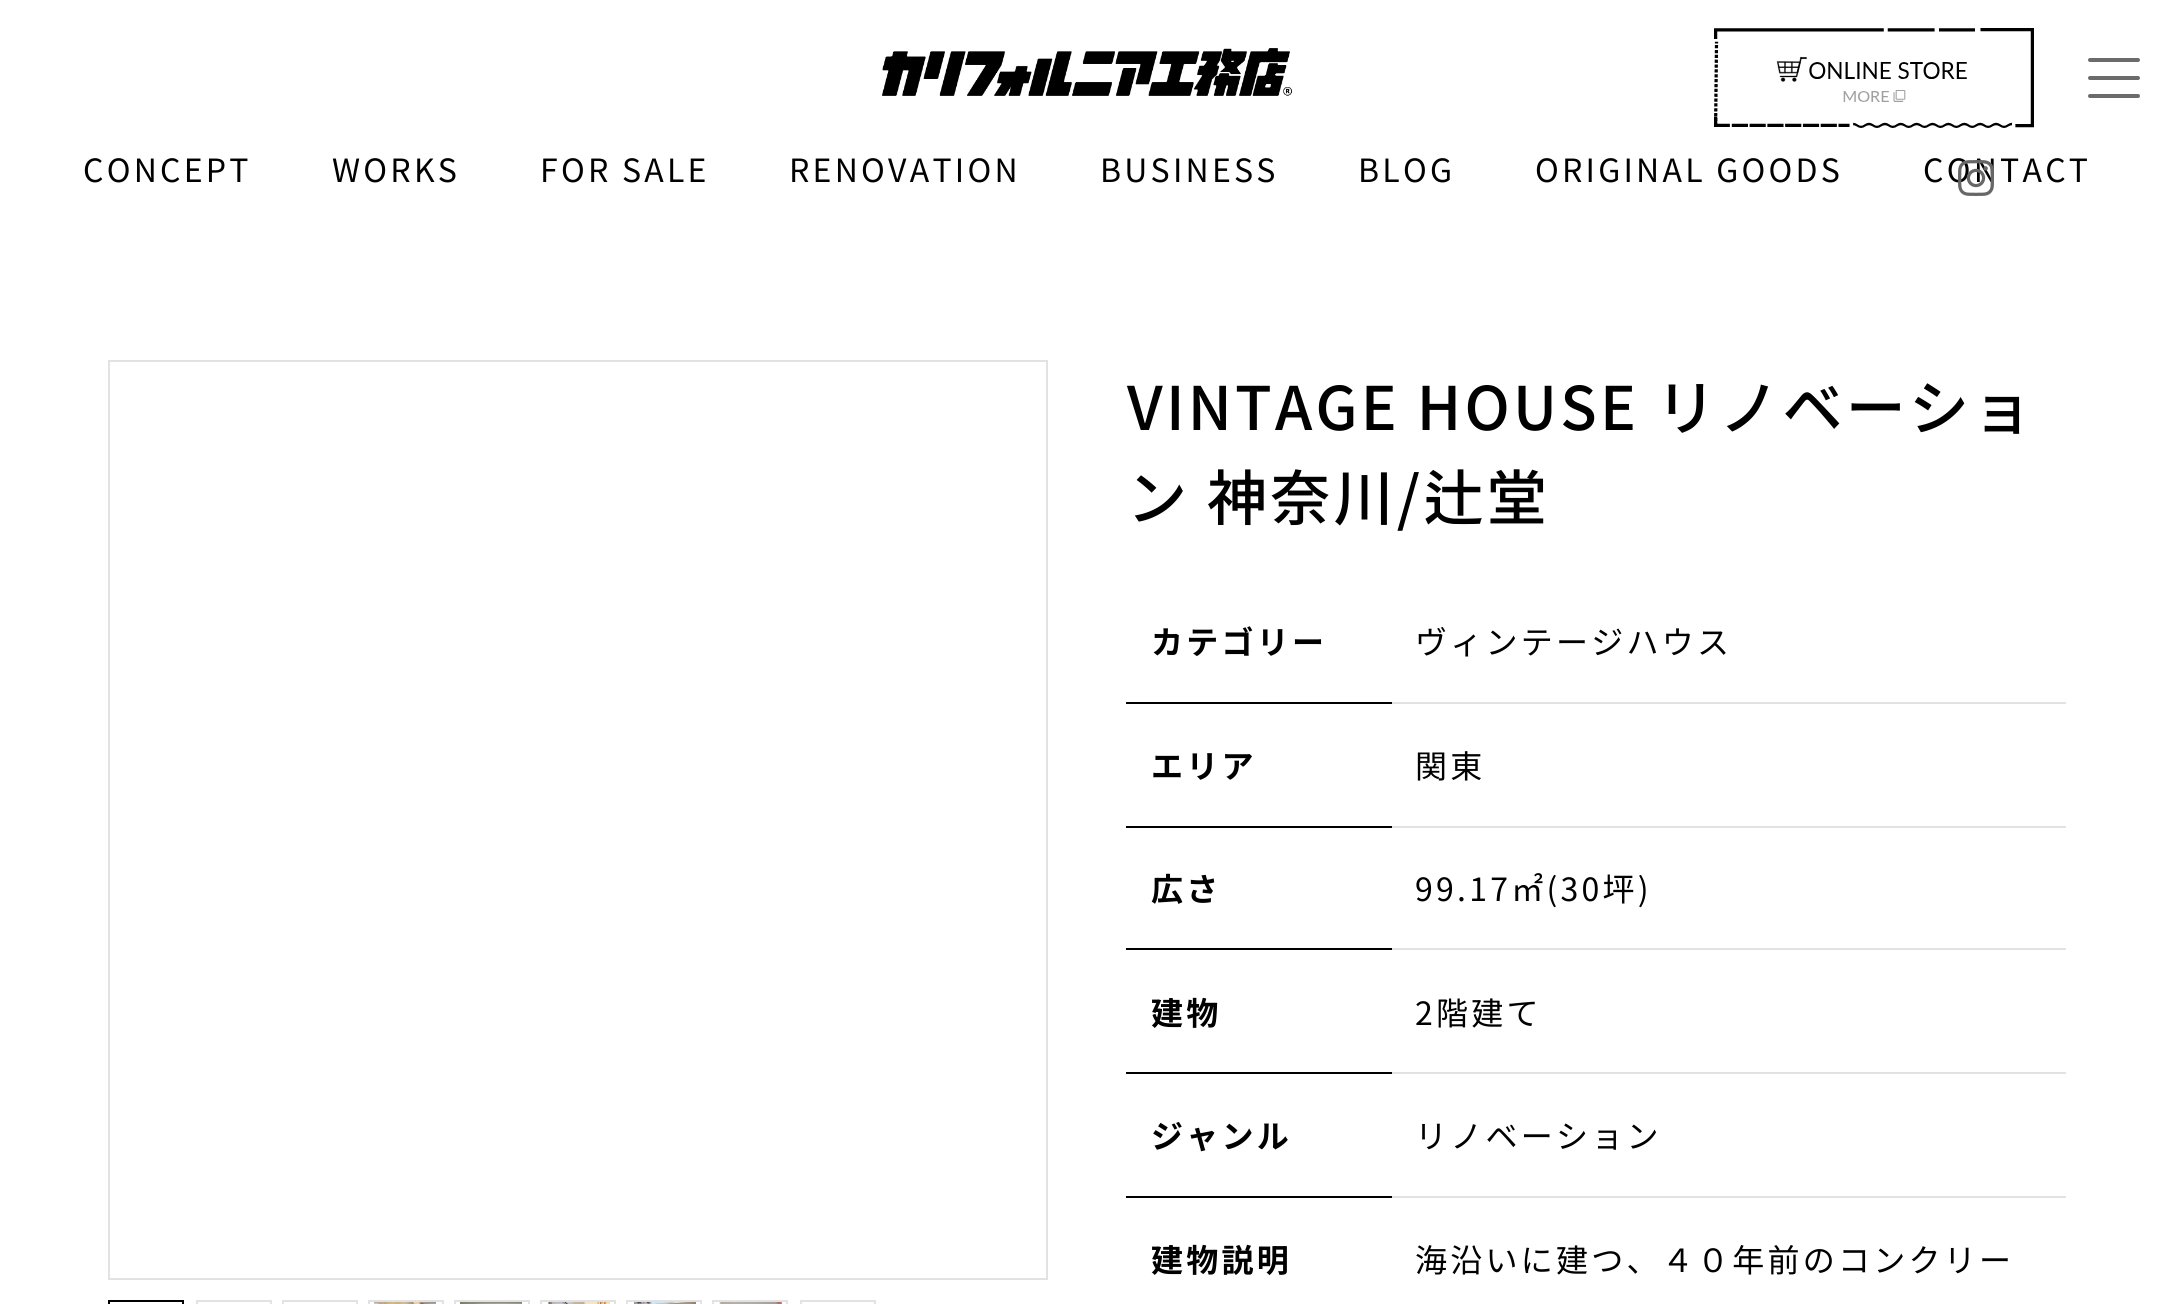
#include <cairo.h>
#include <math.h>
#include <stddef.h>

typedef struct { double x, y; const char *s; } line_t;

static void ink(cairo_t *ctx, unsigned color) {
    cairo_set_source_rgb(ctx, (color >> 16) / 255.0, (color >> 8 & 255) / 255.0, (color & 255) / 255.0);
}

static void write_spaced(cairo_t *ctx, double x, double y, const char *s, double letter, double word) {
    cairo_move_to(ctx, x, y);
    while (*s) {
        char ch[5] = {0};
        int n = 0;
        do ch[n++] = *s++; while ((*s & 0xC0) == 0x80);
        cairo_show_text(ctx, ch);
        cairo_rel_move_to(ctx, letter + word * (*ch == ' '), 0);
    }
}

static void round_path(cairo_t *ctx, double x, double y, double w, double h, double r) {
    cairo_new_sub_path(ctx);
    cairo_arc(ctx, x + w - r, y + h - r, r, 0, M_PI / 2);
    cairo_arc(ctx, x + r, y + h - r, r, M_PI / 2, M_PI);
    cairo_arc(ctx, x + r, y + r, r, M_PI, 1.5 * M_PI);
    cairo_arc(ctx, x + w - r, y + r, r, 1.5 * M_PI, 2 * M_PI);
    cairo_close_path(ctx);
}

static void paste(cairo_t *ctx, const char *path, double x, double y, double w, double h) {
    cairo_surface_t *image = cairo_image_surface_create_from_png(path);
    cairo_save(ctx);
    cairo_set_source_surface(ctx, image, x, y);
    cairo_rectangle(ctx, x, y, w, h);
    cairo_fill(ctx);
    cairo_restore(ctx);
    cairo_surface_destroy(image);
}

int main(void) {
    cairo_surface_t *surface = cairo_image_surface_create(CAIRO_FORMAT_RGB24, 2174, 1304);
    cairo_t *ctx = cairo_create(surface);
    cairo_font_options_t *options = cairo_font_options_create();
    cairo_font_options_set_hint_metrics(options, CAIRO_HINT_METRICS_OFF);
    cairo_font_options_set_hint_style(options, CAIRO_HINT_STYLE_NONE);
    cairo_set_font_options(ctx, options);
    cairo_set_miter_limit(ctx, 4);
    ink(ctx, 0xFFFFFF);
    cairo_paint(ctx);
    ink(ctx, 0x6B6B6B);
    round_path(ctx, 2088, 58, 52, 4, 2);
    cairo_fill(ctx);
    round_path(ctx, 2088, 76, 52, 4, 2);
    cairo_fill(ctx);
    round_path(ctx, 2088, 94, 52, 4, 2);
    cairo_fill(ctx);
    paste(ctx, "media/1.png", 882, 48, 410, 48);
    paste(ctx, "media/2.png", 1714, 28, 320, 100);
    cairo_select_font_face(ctx, "Noto Sans JP", CAIRO_FONT_SLANT_NORMAL, CAIRO_FONT_WEIGHT_NORMAL);
    cairo_set_font_size(ctx, 32);
    ink(ctx, 0x000000);
    {
        static const line_t items[] = {
            {83, 182, "CONCEPT"},
            {332, 182, "WORKS"},
            {540, 182, "FOR SALE"},
            {789, 182, "RENOVATION"},
            {1100, 182, "BUSINESS"},
            {1358, 182, "BLOG"},
            {1535, 182, "ORIGINAL GOODS"},
            {1923, 182, "CONTACT"},
        };
        for (size_t i = 0; i < sizeof items / sizeof *items; i++) {
            write_spaced(ctx, items[i].x, items[i].y, items[i].s, 3.25, 0);
        }
    }
    paste(ctx, "media/3.png", 1958, 160, 36, 36);
    cairo_rectangle(ctx, 109, 361, 938, 918);
    ink(ctx, 0xE2E2E2);
    cairo_stroke(ctx);
    cairo_rectangle(ctx, 109, 1301, 74, 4);
    ink(ctx, 0x000000);
    cairo_stroke(ctx);
    cairo_rectangle(ctx, 197, 1301, 74, 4);
    ink(ctx, 0xE2E2E2);
    cairo_stroke(ctx);
    cairo_rectangle(ctx, 283, 1301, 74, 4);
    cairo_stroke(ctx);
    cairo_rectangle(ctx, 369, 1301, 74, 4);
    cairo_stroke(ctx);
    paste(ctx, "media/4.png", 374, 1302, 62, 2);
    cairo_rectangle(ctx, 455, 1301, 74, 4);
    cairo_stroke(ctx);
    paste(ctx, "media/5.png", 460, 1302, 62, 2);
    cairo_rectangle(ctx, 541, 1301, 74, 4);
    cairo_stroke(ctx);
    paste(ctx, "media/6.png", 548, 1302, 62, 2);
    cairo_rectangle(ctx, 627, 1301, 74, 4);
    cairo_stroke(ctx);
    paste(ctx, "media/7.png", 634, 1302, 62, 2);
    cairo_rectangle(ctx, 713, 1301, 74, 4);
    cairo_stroke(ctx);
    paste(ctx, "media/8.png", 719, 1302, 63, 2);
    cairo_rectangle(ctx, 801, 1301, 74, 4);
    cairo_stroke(ctx);
    cairo_select_font_face(ctx, "Noto Sans JP Medium", CAIRO_FONT_SLANT_NORMAL, CAIRO_FONT_WEIGHT_NORMAL);
    cairo_set_font_size(ctx, 60);
    ink(ctx, 0x000000);
    write_spaced(ctx, 1127, 430, "VINTAGE HOUSE リノベーショ", 3.25, 0);
    write_spaced(ctx, 1127, 520, "ン 神奈川/辻堂", 3.25, 0);
    ink(ctx, 0xE2E2E2);
    cairo_rectangle(ctx, 1390, 702, 676, 2);
    cairo_fill(ctx);
    ink(ctx, 0x000000);
    cairo_rectangle(ctx, 1126, 702, 266, 2);
    cairo_fill(ctx);
    cairo_select_font_face(ctx, "Noto Sans JP", CAIRO_FONT_SLANT_NORMAL, CAIRO_FONT_WEIGHT_BOLD);
    cairo_set_font_size(ctx, 32);
    write_spaced(ctx, 1151, 654, "カテゴリー", 3.25, 0);
    cairo_select_font_face(ctx, "Noto Sans JP", CAIRO_FONT_SLANT_NORMAL, CAIRO_FONT_WEIGHT_NORMAL);
    write_spaced(ctx, 1415, 654, "ヴィンテージハウス", 3.25, 0);
    ink(ctx, 0xE2E2E2);
    cairo_rectangle(ctx, 1390, 826, 676, 2);
    cairo_fill(ctx);
    ink(ctx, 0x000000);
    cairo_rectangle(ctx, 1126, 826, 266, 2);
    cairo_fill(ctx);
    cairo_select_font_face(ctx, "Noto Sans JP", CAIRO_FONT_SLANT_NORMAL, CAIRO_FONT_WEIGHT_BOLD);
    write_spaced(ctx, 1151, 778, "エリア", 3.25, 0);
    cairo_select_font_face(ctx, "Noto Sans JP", CAIRO_FONT_SLANT_NORMAL, CAIRO_FONT_WEIGHT_NORMAL);
    write_spaced(ctx, 1415, 778, "関東", 3.25, 0);
    ink(ctx, 0xE2E2E2);
    cairo_rectangle(ctx, 1390, 948, 676, 2);
    cairo_fill(ctx);
    ink(ctx, 0x000000);
    cairo_rectangle(ctx, 1126, 948, 266, 2);
    cairo_fill(ctx);
    cairo_select_font_face(ctx, "Noto Sans JP", CAIRO_FONT_SLANT_NORMAL, CAIRO_FONT_WEIGHT_BOLD);
    write_spaced(ctx, 1151, 901, "広さ", 3.25, 0);
    cairo_select_font_face(ctx, "Noto Sans JP", CAIRO_FONT_SLANT_NORMAL, CAIRO_FONT_WEIGHT_NORMAL);
    write_spaced(ctx, 1415, 901, "99.17㎡(30坪)", 3.25, 0);
    ink(ctx, 0xE2E2E2);
    cairo_rectangle(ctx, 1390, 1072, 676, 2);
    cairo_fill(ctx);
    ink(ctx, 0x000000);
    cairo_rectangle(ctx, 1126, 1072, 266, 2);
    cairo_fill(ctx);
    cairo_select_font_face(ctx, "Noto Sans JP", CAIRO_FONT_SLANT_NORMAL, CAIRO_FONT_WEIGHT_BOLD);
    write_spaced(ctx, 1151, 1025, "建物", 3.25, 0);
    cairo_select_font_face(ctx, "Noto Sans JP", CAIRO_FONT_SLANT_NORMAL, CAIRO_FONT_WEIGHT_NORMAL);
    write_spaced(ctx, 1415, 1025, "2階建て", 3.25, 0);
    ink(ctx, 0xE2E2E2);
    cairo_rectangle(ctx, 1390, 1196, 676, 2);
    cairo_fill(ctx);
    ink(ctx, 0x000000);
    cairo_rectangle(ctx, 1126, 1196, 266, 2);
    cairo_fill(ctx);
    cairo_select_font_face(ctx, "Noto Sans JP", CAIRO_FONT_SLANT_NORMAL, CAIRO_FONT_WEIGHT_BOLD);
    write_spaced(ctx, 1151, 1148, "ジャンル", 3.25, 0);
    cairo_select_font_face(ctx, "Noto Sans JP", CAIRO_FONT_SLANT_NORMAL, CAIRO_FONT_WEIGHT_NORMAL);
    write_spaced(ctx, 1415, 1148, "リノベーション", 3.25, 0);
    cairo_select_font_face(ctx, "Noto Sans JP", CAIRO_FONT_SLANT_NORMAL, CAIRO_FONT_WEIGHT_BOLD);
    write_spaced(ctx, 1151, 1272, "建物説明", 3.25, 0);
    cairo_select_font_face(ctx, "Noto Sans JP", CAIRO_FONT_SLANT_NORMAL, CAIRO_FONT_WEIGHT_NORMAL);
    write_spaced(ctx, 1415, 1272, "海沿いに建つ、４０年前のコンクリー", 3.25, 0);
    cairo_surface_write_to_png(surface, "image.png");
    cairo_font_options_destroy(options);
    cairo_destroy(ctx);
    cairo_surface_destroy(surface);
    return 0;
}
